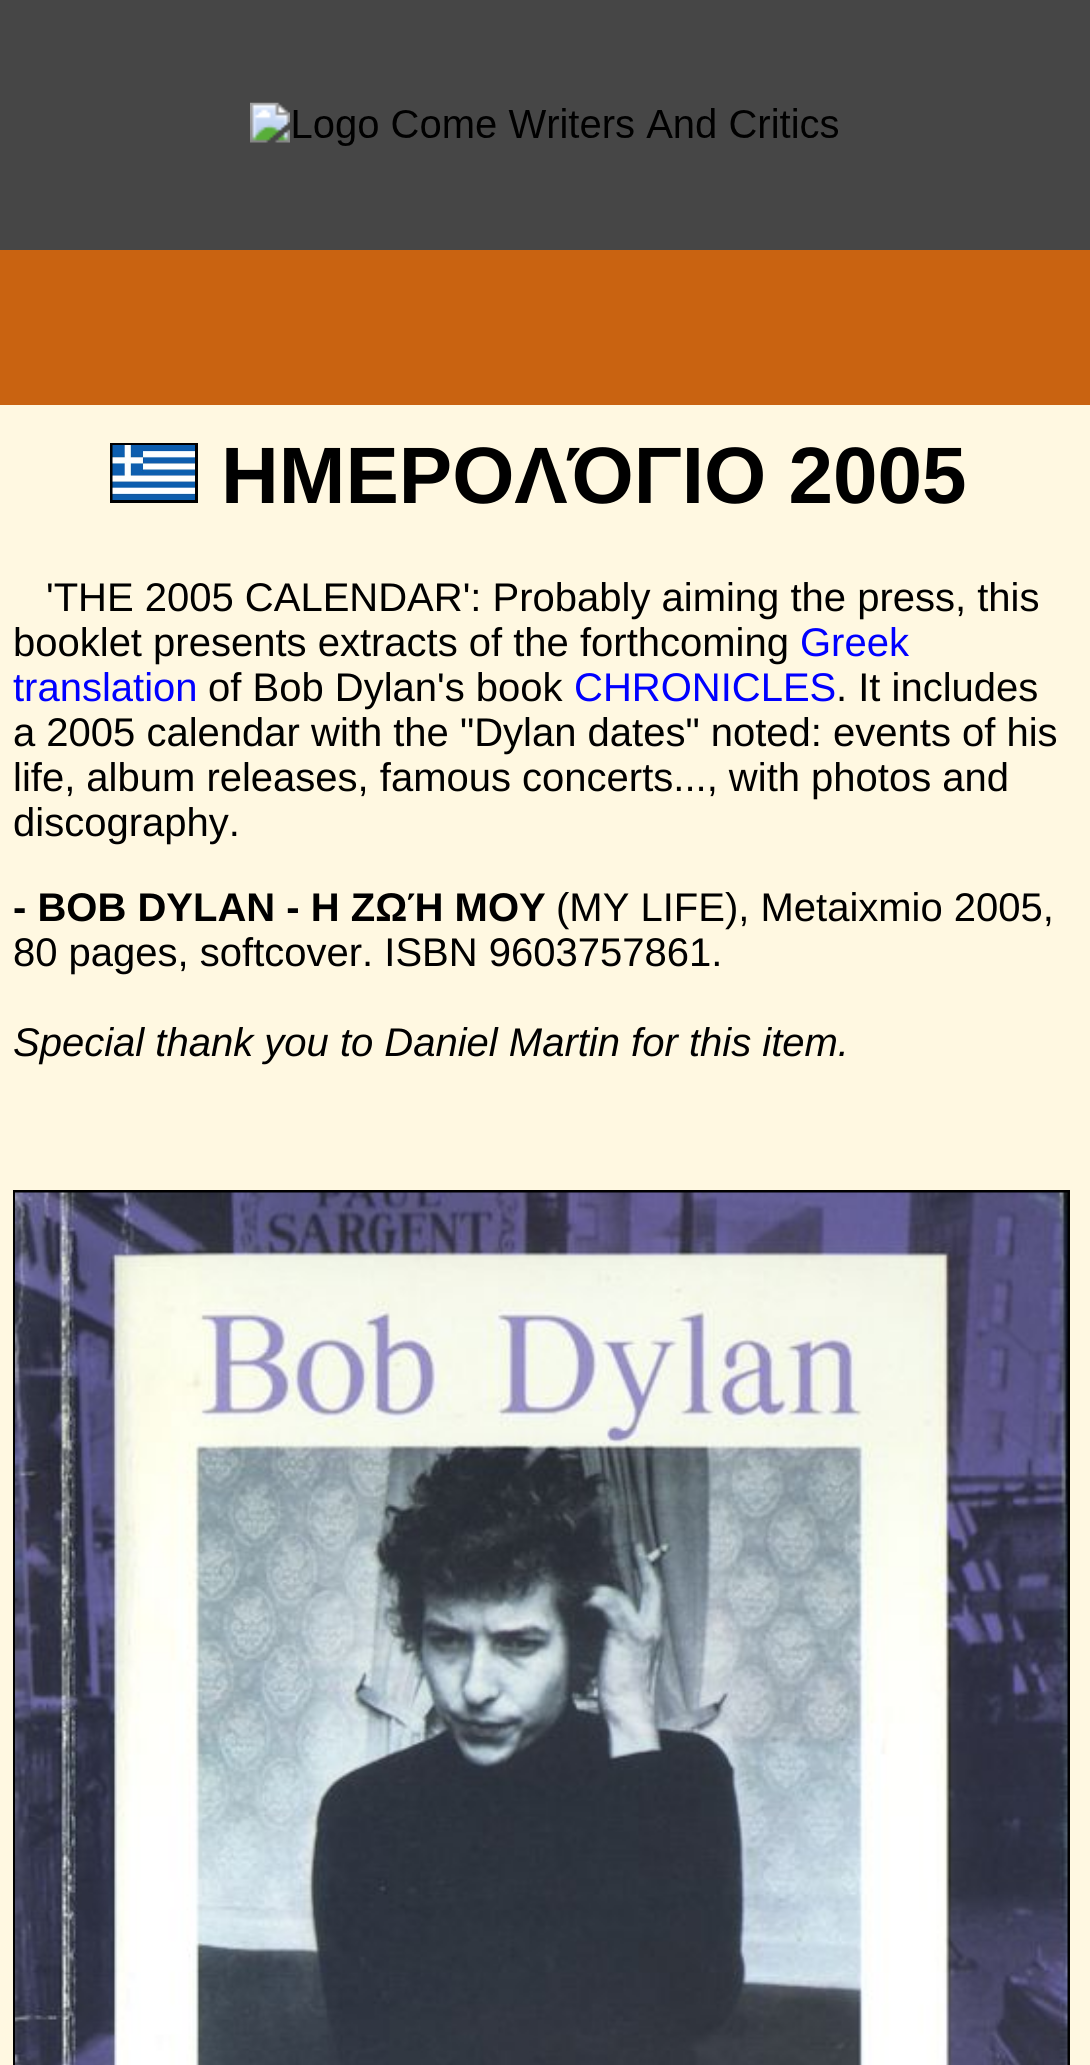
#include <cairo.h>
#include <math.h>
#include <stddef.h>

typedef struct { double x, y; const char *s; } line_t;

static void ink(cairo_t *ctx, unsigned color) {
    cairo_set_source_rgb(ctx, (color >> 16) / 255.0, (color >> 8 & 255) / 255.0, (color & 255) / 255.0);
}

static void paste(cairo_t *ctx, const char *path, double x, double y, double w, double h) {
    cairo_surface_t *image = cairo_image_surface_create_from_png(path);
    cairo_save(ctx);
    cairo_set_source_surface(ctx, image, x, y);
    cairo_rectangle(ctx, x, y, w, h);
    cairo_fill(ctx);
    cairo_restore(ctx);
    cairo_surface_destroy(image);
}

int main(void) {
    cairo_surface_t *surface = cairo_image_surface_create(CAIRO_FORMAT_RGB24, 1090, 2065);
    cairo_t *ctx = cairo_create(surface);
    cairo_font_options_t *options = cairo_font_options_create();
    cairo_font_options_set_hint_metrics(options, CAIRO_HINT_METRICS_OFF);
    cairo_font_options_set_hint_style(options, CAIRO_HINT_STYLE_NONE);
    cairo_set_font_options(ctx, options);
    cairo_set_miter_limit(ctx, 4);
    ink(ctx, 0xFFF8E1);
    cairo_paint(ctx);
    ink(ctx, 0x464646);
    cairo_rectangle(ctx, 0, 0, 1090, 250);
    cairo_fill(ctx);
    paste(ctx, "media/1.png", 250, 102, 588, 44);
    ink(ctx, 0xC96311);
    cairo_rectangle(ctx, 0, 250, 1090, 155);
    cairo_fill(ctx);
    cairo_rectangle(ctx, 111.5, 444.5, 85, 57);
    ink(ctx, 0x000000);
    cairo_set_line_width(ctx, 3);
    cairo_stroke(ctx);
    paste(ctx, "media/2.png", 112, 445, 83, 55);
    cairo_select_font_face(ctx, "Liberation Sans", CAIRO_FONT_SLANT_NORMAL, CAIRO_FONT_WEIGHT_BOLD);
    cairo_set_font_size(ctx, 80);
    cairo_move_to(ctx, 221, 503);
    cairo_show_text(ctx, "ΗΜΕΡΟΛΌΓΙΟ 2005");
    cairo_select_font_face(ctx, "Liberation Sans", CAIRO_FONT_SLANT_NORMAL, CAIRO_FONT_WEIGHT_NORMAL);
    cairo_set_font_size(ctx, 40);
    cairo_move_to(ctx, 46, 611);
    cairo_show_text(ctx, "'THE 2005 CALENDAR': Probably aiming the press, this");
    cairo_move_to(ctx, 13, 656);
    cairo_show_text(ctx, "booklet presents extracts of the forthcoming");
    ink(ctx, 0x0000FF);
    cairo_move_to(ctx, 800, 656);
    cairo_show_text(ctx, "Greek");
    cairo_move_to(ctx, 13, 701);
    cairo_show_text(ctx, "translation");
    ink(ctx, 0x000000);
    cairo_move_to(ctx, 208, 701);
    cairo_show_text(ctx, "of Bob Dylan's book");
    ink(ctx, 0x0000FF);
    cairo_move_to(ctx, 574, 701);
    cairo_show_text(ctx, "CHRONICLES");
    ink(ctx, 0x000000);
    {
        static const line_t items[] = {
            {836, 701, ". It includes"},
            {13, 746, "a 2005 calendar with the \"Dylan dates\" noted: events of his"},
            {13, 791, "life, album releases, famous concerts..., with photos and"},
            {13, 836, "discography."},
        };
        for (size_t i = 0; i < sizeof items / sizeof *items; i++) {
            cairo_move_to(ctx, items[i].x, items[i].y);
            cairo_show_text(ctx, items[i].s);
        }
    }
    cairo_select_font_face(ctx, "Liberation Sans", CAIRO_FONT_SLANT_NORMAL, CAIRO_FONT_WEIGHT_BOLD);
    cairo_move_to(ctx, 13, 921);
    cairo_show_text(ctx, "- BOB DYLAN - Η ΖΩΉ ΜΟΥ");
    cairo_select_font_face(ctx, "Liberation Sans", CAIRO_FONT_SLANT_NORMAL, CAIRO_FONT_WEIGHT_NORMAL);
    cairo_move_to(ctx, 556, 921);
    cairo_show_text(ctx, "(MY LIFE), Metaixmio 2005,");
    cairo_move_to(ctx, 13, 966);
    cairo_show_text(ctx, "80 pages, softcover. ISBN 9603757861.");
    cairo_select_font_face(ctx, "Liberation Sans", CAIRO_FONT_SLANT_ITALIC, CAIRO_FONT_WEIGHT_NORMAL);
    cairo_move_to(ctx, 13, 1056);
    cairo_show_text(ctx, "Special thank you to Daniel Martin for this item.");
    cairo_rectangle(ctx, 14.5, 1191.5, 1054, 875);
    cairo_stroke(ctx);
    paste(ctx, "media/3.png", 15, 1192, 1053, 873);
    cairo_surface_write_to_png(surface, "image.png");
    cairo_font_options_destroy(options);
    cairo_destroy(ctx);
    cairo_surface_destroy(surface);
    return 0;
}
